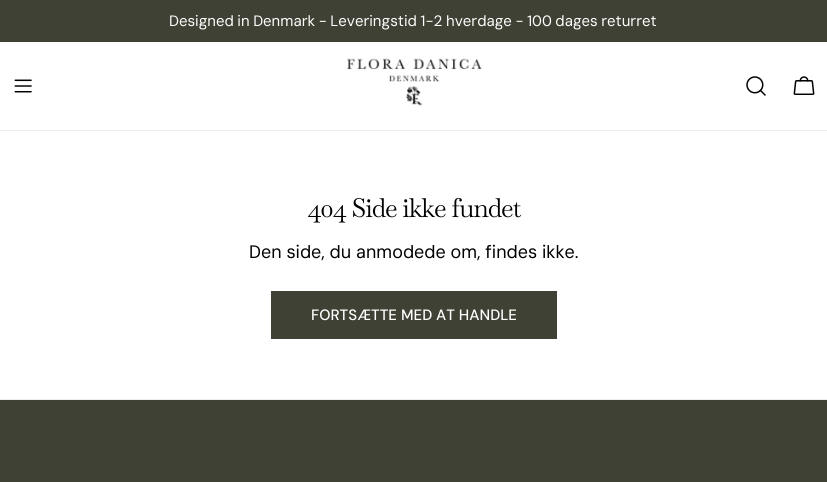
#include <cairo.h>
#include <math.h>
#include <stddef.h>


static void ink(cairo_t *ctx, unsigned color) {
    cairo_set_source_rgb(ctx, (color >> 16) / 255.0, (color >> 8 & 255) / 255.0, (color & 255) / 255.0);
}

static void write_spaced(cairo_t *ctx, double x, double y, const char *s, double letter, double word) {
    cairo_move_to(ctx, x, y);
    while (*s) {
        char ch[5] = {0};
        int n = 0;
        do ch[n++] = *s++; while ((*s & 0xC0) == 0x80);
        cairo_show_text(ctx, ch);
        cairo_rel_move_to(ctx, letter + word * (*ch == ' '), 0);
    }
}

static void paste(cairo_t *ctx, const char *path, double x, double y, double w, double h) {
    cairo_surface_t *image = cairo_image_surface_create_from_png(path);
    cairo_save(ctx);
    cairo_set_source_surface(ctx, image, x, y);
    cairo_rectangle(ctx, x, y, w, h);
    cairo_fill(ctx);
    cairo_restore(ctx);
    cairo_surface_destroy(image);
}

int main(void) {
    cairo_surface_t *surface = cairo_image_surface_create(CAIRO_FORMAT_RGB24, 827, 482);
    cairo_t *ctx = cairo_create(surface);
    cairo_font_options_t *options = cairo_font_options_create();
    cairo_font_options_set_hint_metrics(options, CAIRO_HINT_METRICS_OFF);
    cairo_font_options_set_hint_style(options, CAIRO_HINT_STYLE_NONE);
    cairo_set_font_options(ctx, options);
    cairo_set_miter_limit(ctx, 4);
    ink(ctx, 0xFFFFFF);
    cairo_paint(ctx);
    ink(ctx, 0x3F4134);
    cairo_rectangle(ctx, 0, 0, 827, 42);
    cairo_fill(ctx);
    cairo_select_font_face(ctx, "DM Sans", CAIRO_FONT_SLANT_NORMAL, CAIRO_FONT_WEIGHT_NORMAL);
    cairo_set_font_size(ctx, 15);
    ink(ctx, 0xFFFFFF);
    write_spaced(ctx, 169, 26, "Designed in Denmark - Leveringstid 1-2 hverdage - 100 dages returret", 0, -0.5);
    ink(ctx, 0xEDEDED);
    cairo_rectangle(ctx, 0, 130, 827, 1);
    cairo_fill(ctx);
    paste(ctx, "media/1.png", 14, 79, 18, 14);
    paste(ctx, "media/2.png", 346, 58, 136, 48);
    paste(ctx, "media/3.png", 746, 76, 20, 20);
    paste(ctx, "media/4.png", 793, 76, 22, 19);
    cairo_select_font_face(ctx, "Baskervville", CAIRO_FONT_SLANT_NORMAL, CAIRO_FONT_WEIGHT_NORMAL);
    cairo_set_font_size(ctx, 26.25);
    ink(ctx, 0x000000);
    write_spaced(ctx, 307, 217, "404 Side ikke fundet", -1.05, 0);
    cairo_select_font_face(ctx, "DM Sans", CAIRO_FONT_SLANT_NORMAL, CAIRO_FONT_WEIGHT_NORMAL);
    cairo_set_font_size(ctx, 18);
    cairo_move_to(ctx, 249, 258);
    cairo_show_text(ctx, "Den side, du anmodede om, findes ikke.");
    ink(ctx, 0x3F4134);
    cairo_rectangle(ctx, 271, 291, 286, 48);
    cairo_fill(ctx);
    cairo_select_font_face(ctx, "DM Sans Medium", CAIRO_FONT_SLANT_NORMAL, CAIRO_FONT_WEIGHT_NORMAL);
    cairo_set_font_size(ctx, 15);
    ink(ctx, 0xFFFFFF);
    cairo_move_to(ctx, 311, 320);
    cairo_show_text(ctx, "FORTSÆTTE MED AT HANDLE");
    ink(ctx, 0x3F4134);
    cairo_rectangle(ctx, 0, 400, 827, 82);
    cairo_fill(ctx);
    ink(ctx, 0xEDEDED);
    cairo_rectangle(ctx, 0, 399, 827, 1);
    cairo_fill(ctx);
    cairo_surface_write_to_png(surface, "image.png");
    cairo_font_options_destroy(options);
    cairo_destroy(ctx);
    cairo_surface_destroy(surface);
    return 0;
}
